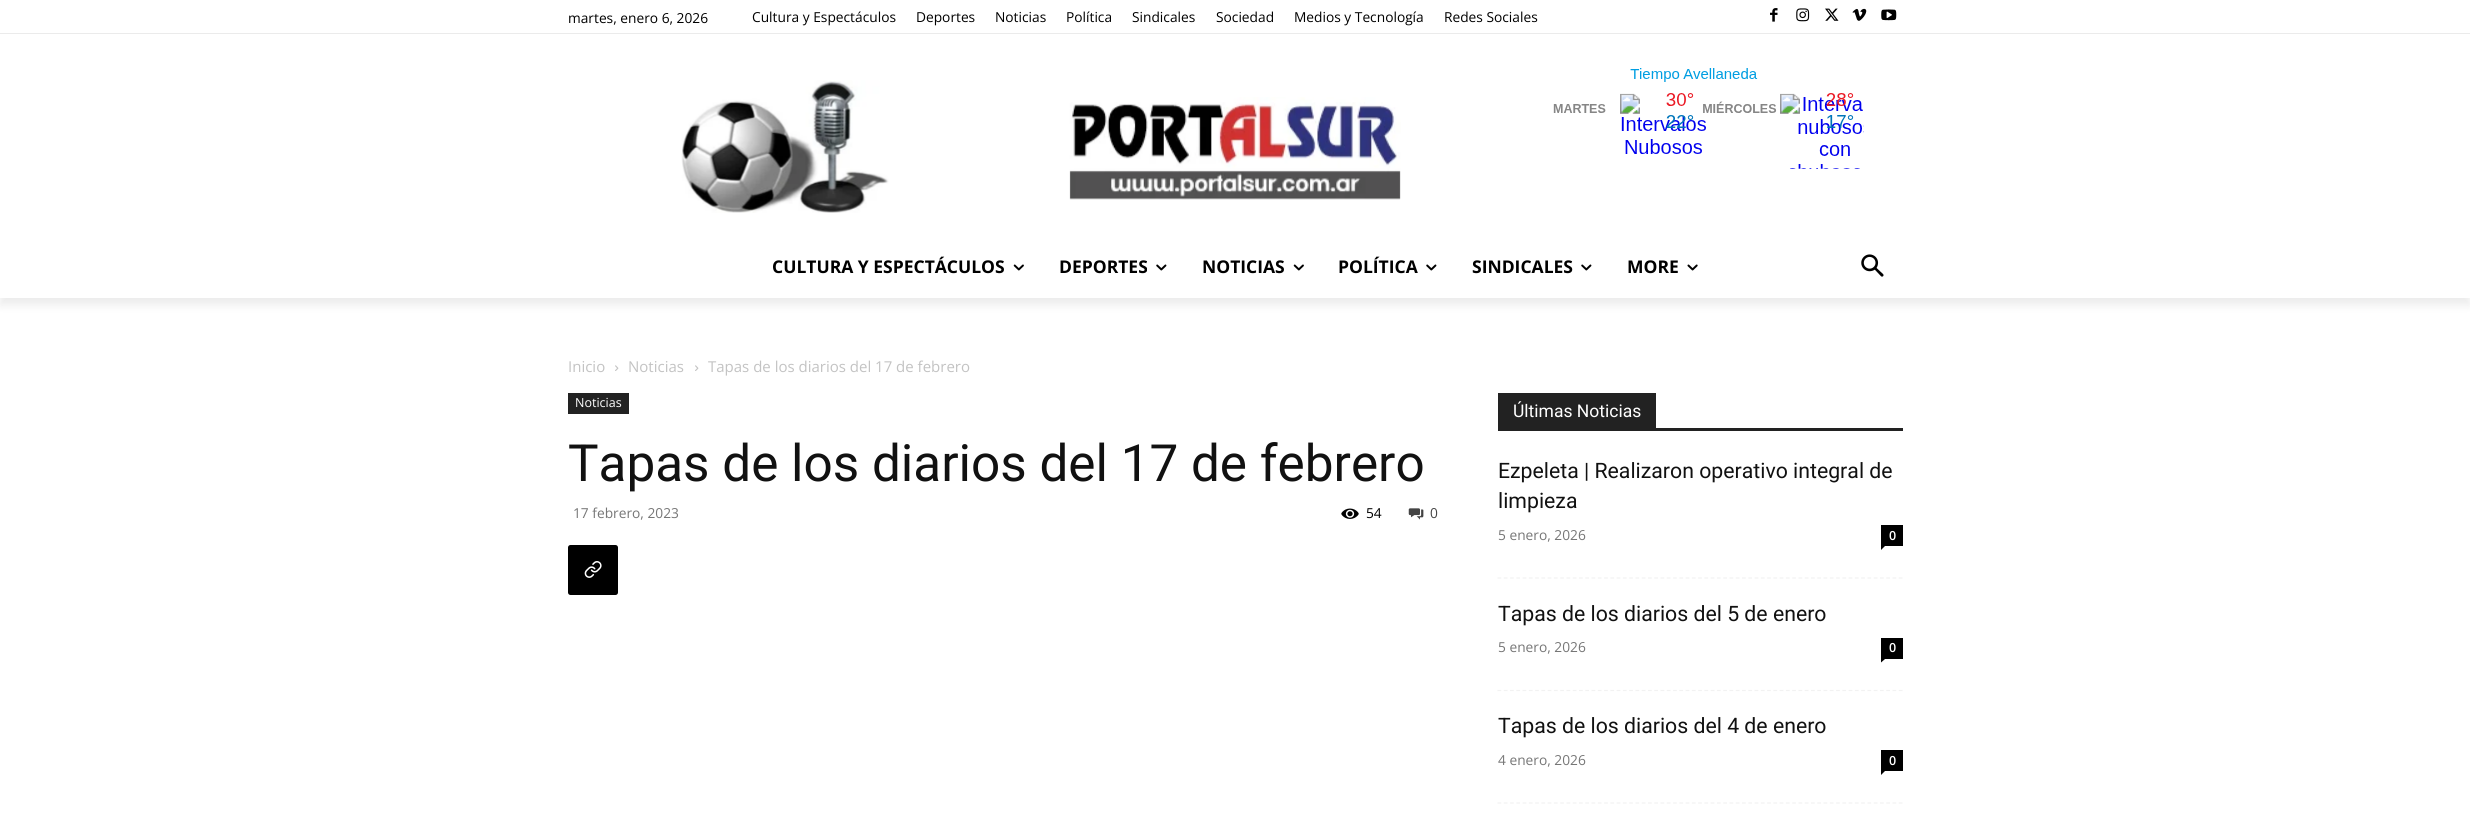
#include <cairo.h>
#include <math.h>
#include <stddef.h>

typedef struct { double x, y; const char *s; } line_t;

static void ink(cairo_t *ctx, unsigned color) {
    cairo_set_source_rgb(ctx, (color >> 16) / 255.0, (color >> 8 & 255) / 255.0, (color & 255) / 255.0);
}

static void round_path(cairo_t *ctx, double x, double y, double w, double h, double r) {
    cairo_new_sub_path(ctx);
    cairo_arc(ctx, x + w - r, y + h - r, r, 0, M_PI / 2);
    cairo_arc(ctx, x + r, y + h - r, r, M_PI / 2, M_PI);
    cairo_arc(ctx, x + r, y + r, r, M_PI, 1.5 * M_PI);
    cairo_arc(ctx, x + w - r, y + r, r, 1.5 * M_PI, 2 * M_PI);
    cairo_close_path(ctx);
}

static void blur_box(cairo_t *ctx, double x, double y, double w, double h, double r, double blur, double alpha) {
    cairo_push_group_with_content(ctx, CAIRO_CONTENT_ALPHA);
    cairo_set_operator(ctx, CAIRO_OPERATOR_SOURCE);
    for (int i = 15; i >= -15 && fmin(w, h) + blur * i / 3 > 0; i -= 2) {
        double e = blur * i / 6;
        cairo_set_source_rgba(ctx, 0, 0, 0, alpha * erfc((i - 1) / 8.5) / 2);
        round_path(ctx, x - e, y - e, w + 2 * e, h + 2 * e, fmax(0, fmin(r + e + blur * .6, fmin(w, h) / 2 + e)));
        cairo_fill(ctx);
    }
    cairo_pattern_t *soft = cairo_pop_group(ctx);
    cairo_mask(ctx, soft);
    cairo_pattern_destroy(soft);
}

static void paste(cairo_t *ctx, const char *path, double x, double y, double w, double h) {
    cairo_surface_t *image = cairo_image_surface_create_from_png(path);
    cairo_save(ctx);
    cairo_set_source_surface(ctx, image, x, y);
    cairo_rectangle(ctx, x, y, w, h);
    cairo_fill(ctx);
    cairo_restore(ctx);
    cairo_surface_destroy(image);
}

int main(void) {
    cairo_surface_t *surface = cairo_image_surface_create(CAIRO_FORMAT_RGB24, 2470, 827);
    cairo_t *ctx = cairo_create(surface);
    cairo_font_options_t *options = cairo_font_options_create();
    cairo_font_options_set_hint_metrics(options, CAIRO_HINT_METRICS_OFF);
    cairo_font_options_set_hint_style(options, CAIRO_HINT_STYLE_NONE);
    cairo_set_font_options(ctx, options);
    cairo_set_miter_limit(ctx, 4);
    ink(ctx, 0xFFFFFF);
    cairo_paint(ctx);
    cairo_select_font_face(ctx, "Open Sans", CAIRO_FONT_SLANT_NORMAL, CAIRO_FONT_WEIGHT_NORMAL);
    cairo_set_font_size(ctx, 13.75);
    ink(ctx, 0x000000);
    {
        static const line_t items[] = {
            {568, 23, "martes, enero 6, 2026"},
            {752, 22, "Cultura y Espectáculos"},
            {916, 22, "Deportes"},
            {995, 22, "Noticias"},
            {1066, 22, "Política"},
            {1132, 22, "Sindicales"},
            {1216, 22, "Sociedad"},
            {1294, 22, "Medios y Tecnología"},
            {1444, 22, "Redes Sociales"},
        };
        for (size_t i = 0; i < sizeof items / sizeof *items; i++) {
            cairo_move_to(ctx, items[i].x, items[i].y);
            cairo_show_text(ctx, items[i].s);
        }
    }
    paste(ctx, "media/1.png", 1770, 8, 8, 14);
    paste(ctx, "media/2.png", 1796, 8, 14, 14);
    paste(ctx, "media/3.png", 1825, 8, 14, 13);
    paste(ctx, "media/4.png", 1852, 8, 15, 13);
    paste(ctx, "media/5.png", 1881, 9, 16, 12);
    ink(ctx, 0xEBEBEB);
    cairo_rectangle(ctx, 0, 33, 2470, 1);
    cairo_fill(ctx);
    paste(ctx, "media/6.png", 681, 80, 208, 133);
    paste(ctx, "media/7.png", 1069, 97, 332, 103);
    paste(ctx, "media/8.png", 1553, 68, 311, 101);
    cairo_save(ctx);
    cairo_set_fill_rule(ctx, CAIRO_FILL_RULE_EVEN_ODD);
    cairo_new_path(ctx);
    cairo_move_to(ctx, 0, 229);
    cairo_line_to(ctx, 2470, 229);
    cairo_line_to(ctx, 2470, 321);
    cairo_line_to(ctx, 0, 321);
    cairo_close_path(ctx);
    cairo_move_to(ctx, 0, 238);
    cairo_line_to(ctx, 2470, 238);
    cairo_line_to(ctx, 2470, 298);
    cairo_line_to(ctx, 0, 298);
    cairo_close_path(ctx);
    cairo_clip(ctx);
    ink(ctx, 0x000000);
    blur_box(ctx, 0, 245, 2470, 60, 0, 5, 0.08);
    cairo_restore(ctx);
    cairo_select_font_face(ctx, "Open Sans", CAIRO_FONT_SLANT_NORMAL, CAIRO_FONT_WEIGHT_BOLD);
    cairo_set_font_size(ctx, 17.5);
    ink(ctx, 0x000000);
    cairo_move_to(ctx, 772, 273);
    cairo_show_text(ctx, "CULTURA Y ESPECTÁCULOS");
    paste(ctx, "media/9.png", 1013, 264, 11, 7);
    cairo_move_to(ctx, 1059, 273);
    cairo_show_text(ctx, "DEPORTES");
    paste(ctx, "media/10.png", 1156, 264, 11, 7);
    cairo_move_to(ctx, 1202, 273);
    cairo_show_text(ctx, "NOTICIAS");
    paste(ctx, "media/9.png", 1293, 264, 11, 7);
    cairo_move_to(ctx, 1338, 273);
    cairo_show_text(ctx, "POLÍTICA");
    paste(ctx, "media/10.png", 1426, 264, 11, 7);
    cairo_move_to(ctx, 1472, 273);
    cairo_show_text(ctx, "SINDICALES");
    paste(ctx, "media/10.png", 1581, 264, 11, 7);
    cairo_move_to(ctx, 1627, 273);
    cairo_show_text(ctx, "MORE");
    paste(ctx, "media/11.png", 1687, 264, 11, 7);
    paste(ctx, "media/12.png", 1861, 254, 23, 23);
    cairo_select_font_face(ctx, "Open Sans", CAIRO_FONT_SLANT_NORMAL, CAIRO_FONT_WEIGHT_NORMAL);
    cairo_set_font_size(ctx, 15);
    ink(ctx, 0xC3C3C3);
    cairo_move_to(ctx, 568, 372);
    cairo_show_text(ctx, "Inicio");
    paste(ctx, "media/13.png", 615, 365, 4, 6);
    cairo_move_to(ctx, 628, 372);
    cairo_show_text(ctx, "Noticias");
    paste(ctx, "media/13.png", 695, 365, 4, 6);
    cairo_move_to(ctx, 708, 372);
    cairo_show_text(ctx, "Tapas de los diarios del 17 de febrero");
    ink(ctx, 0x222222);
    cairo_rectangle(ctx, 568, 393, 61, 21);
    cairo_fill(ctx);
    cairo_set_font_size(ctx, 12.5);
    ink(ctx, 0xFFFFFF);
    cairo_move_to(ctx, 575, 407);
    cairo_show_text(ctx, "Noticias");
    cairo_select_font_face(ctx, "Roboto", CAIRO_FONT_SLANT_NORMAL, CAIRO_FONT_WEIGHT_NORMAL);
    cairo_set_font_size(ctx, 51.25);
    ink(ctx, 0x111111);
    cairo_move_to(ctx, 568, 481);
    cairo_show_text(ctx, "Tapas de los diarios del 17 de febrero");
    cairo_select_font_face(ctx, "Open Sans", CAIRO_FONT_SLANT_NORMAL, CAIRO_FONT_WEIGHT_NORMAL);
    cairo_set_font_size(ctx, 13.75);
    ink(ctx, 0x767676);
    cairo_move_to(ctx, 573, 518);
    cairo_show_text(ctx, "17 febrero, 2023");
    paste(ctx, "media/14.png", 1341, 508, 18, 11);
    ink(ctx, 0x000000);
    cairo_move_to(ctx, 1366, 518);
    cairo_show_text(ctx, "54");
    paste(ctx, "media/15.png", 1408, 508, 16, 12);
    ink(ctx, 0x444444);
    cairo_move_to(ctx, 1430, 518);
    cairo_show_text(ctx, "0");
    ink(ctx, 0x000000);
    round_path(ctx, 568, 545, 50, 50, 2.5);
    cairo_fill(ctx);
    paste(ctx, "media/16.png", 584, 561, 18, 17);
    ink(ctx, 0x222222);
    cairo_rectangle(ctx, 1498, 428, 405, 3);
    cairo_fill(ctx);
    cairo_rectangle(ctx, 1498, 393, 158, 35);
    cairo_fill(ctx);
    cairo_select_font_face(ctx, "Roboto", CAIRO_FONT_SLANT_NORMAL, CAIRO_FONT_WEIGHT_NORMAL);
    cairo_set_font_size(ctx, 17.5);
    ink(ctx, 0xFFFFFF);
    cairo_move_to(ctx, 1513, 417);
    cairo_show_text(ctx, "Últimas Noticias");
    cairo_new_path(ctx);
    cairo_move_to(ctx, 1497.5, 578);
    cairo_line_to(ctx, 1902.5, 578);
    ink(ctx, 0xF2F2F2);
    cairo_set_line_width(ctx, 1.2);
    cairo_set_dash(ctx, (double[]){3.75, 2.52}, 2, 0);
    cairo_stroke(ctx);
    cairo_set_font_size(ctx, 21.25);
    ink(ctx, 0x111111);
    cairo_move_to(ctx, 1498, 478);
    cairo_show_text(ctx, "Ezpeleta | Realizaron operativo integral de");
    cairo_move_to(ctx, 1498, 508);
    cairo_show_text(ctx, "limpieza");
    cairo_select_font_face(ctx, "Open Sans", CAIRO_FONT_SLANT_NORMAL, CAIRO_FONT_WEIGHT_NORMAL);
    cairo_set_font_size(ctx, 13.75);
    ink(ctx, 0x767676);
    cairo_move_to(ctx, 1498, 540);
    cairo_show_text(ctx, "5 enero, 2026");
    ink(ctx, 0x000000);
    cairo_rectangle(ctx, 1881, 525, 22, 21);
    cairo_fill(ctx);
    cairo_select_font_face(ctx, "Open Sans SemiBold", CAIRO_FONT_SLANT_NORMAL, CAIRO_FONT_WEIGHT_NORMAL);
    cairo_set_font_size(ctx, 12.5);
    ink(ctx, 0xFFFFFF);
    cairo_move_to(ctx, 1889, 540);
    cairo_show_text(ctx, "0");
    ink(ctx, 0x000000);
    cairo_new_path(ctx);
    cairo_move_to(ctx, 1881, 546);
    cairo_line_to(ctx, 1885, 546);
    cairo_line_to(ctx, 1881, 550);
    cairo_close_path(ctx);
    cairo_fill(ctx);
    cairo_new_path(ctx);
    cairo_move_to(ctx, 1497.5, 690.5);
    cairo_line_to(ctx, 1902.5, 690.5);
    ink(ctx, 0xF2F2F2);
    cairo_stroke(ctx);
    cairo_select_font_face(ctx, "Roboto", CAIRO_FONT_SLANT_NORMAL, CAIRO_FONT_WEIGHT_NORMAL);
    cairo_set_font_size(ctx, 21.25);
    ink(ctx, 0x111111);
    cairo_move_to(ctx, 1498, 621);
    cairo_show_text(ctx, "Tapas de los diarios del 5 de enero");
    cairo_select_font_face(ctx, "Open Sans", CAIRO_FONT_SLANT_NORMAL, CAIRO_FONT_WEIGHT_NORMAL);
    cairo_set_font_size(ctx, 13.75);
    ink(ctx, 0x767676);
    cairo_move_to(ctx, 1498, 652);
    cairo_show_text(ctx, "5 enero, 2026");
    ink(ctx, 0x000000);
    cairo_rectangle(ctx, 1881, 638, 22, 21);
    cairo_fill(ctx);
    cairo_select_font_face(ctx, "Open Sans SemiBold", CAIRO_FONT_SLANT_NORMAL, CAIRO_FONT_WEIGHT_NORMAL);
    cairo_set_font_size(ctx, 12.5);
    ink(ctx, 0xFFFFFF);
    cairo_move_to(ctx, 1889, 652);
    cairo_show_text(ctx, "0");
    ink(ctx, 0x000000);
    cairo_new_path(ctx);
    cairo_move_to(ctx, 1881, 659);
    cairo_line_to(ctx, 1885, 659);
    cairo_line_to(ctx, 1881, 662.5);
    cairo_close_path(ctx);
    cairo_fill(ctx);
    cairo_new_path(ctx);
    cairo_move_to(ctx, 1497.5, 803);
    cairo_line_to(ctx, 1902.5, 803);
    ink(ctx, 0xF2F2F2);
    cairo_stroke(ctx);
    cairo_select_font_face(ctx, "Roboto", CAIRO_FONT_SLANT_NORMAL, CAIRO_FONT_WEIGHT_NORMAL);
    cairo_set_font_size(ctx, 21.25);
    ink(ctx, 0x111111);
    cairo_move_to(ctx, 1498, 733);
    cairo_show_text(ctx, "Tapas de los diarios del 4 de enero");
    cairo_select_font_face(ctx, "Open Sans", CAIRO_FONT_SLANT_NORMAL, CAIRO_FONT_WEIGHT_NORMAL);
    cairo_set_font_size(ctx, 13.75);
    ink(ctx, 0x767676);
    cairo_move_to(ctx, 1498, 765);
    cairo_show_text(ctx, "4 enero, 2026");
    ink(ctx, 0x000000);
    cairo_rectangle(ctx, 1881, 750, 22, 21);
    cairo_fill(ctx);
    cairo_select_font_face(ctx, "Open Sans SemiBold", CAIRO_FONT_SLANT_NORMAL, CAIRO_FONT_WEIGHT_NORMAL);
    cairo_set_font_size(ctx, 12.5);
    ink(ctx, 0xFFFFFF);
    cairo_move_to(ctx, 1889, 765);
    cairo_show_text(ctx, "0");
    ink(ctx, 0x000000);
    cairo_new_path(ctx);
    cairo_move_to(ctx, 1881, 771);
    cairo_line_to(ctx, 1885, 771);
    cairo_line_to(ctx, 1881, 775);
    cairo_close_path(ctx);
    cairo_fill(ctx);
    cairo_surface_write_to_png(surface, "image.png");
    cairo_font_options_destroy(options);
    cairo_destroy(ctx);
    cairo_surface_destroy(surface);
    return 0;
}
